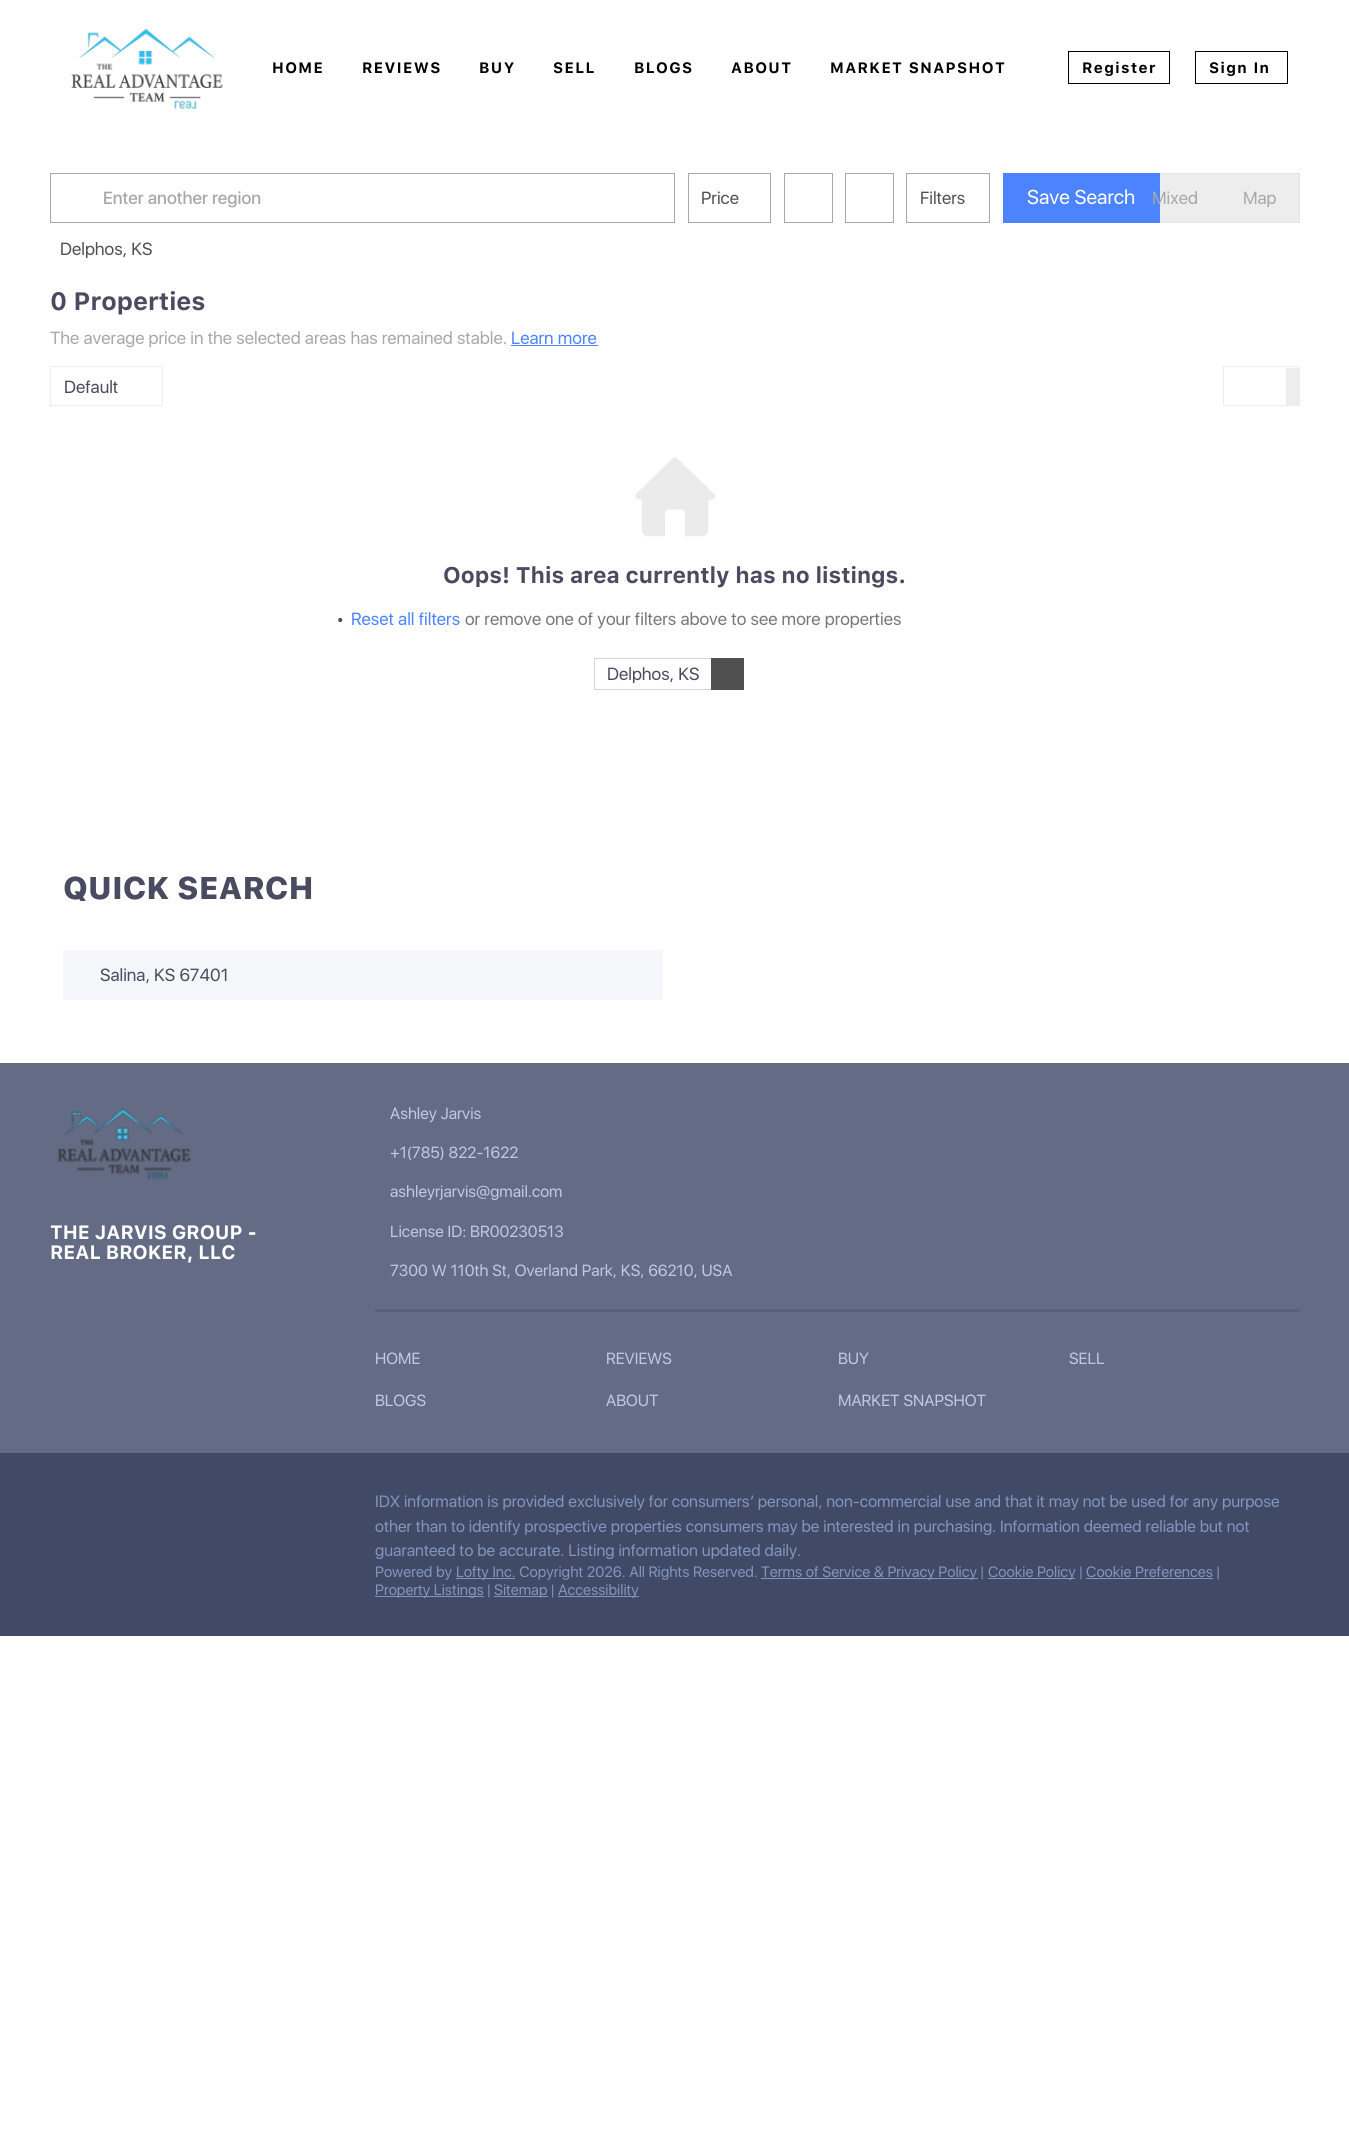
#include <cairo.h>
#include <math.h>
#include <stddef.h>

typedef struct { double x, y; const char *s; } line_t;
typedef struct { double x, y, w, h; unsigned color; } box_t;

static void ink(cairo_t *ctx, unsigned color) {
    cairo_set_source_rgb(ctx, (color >> 16) / 255.0, (color >> 8 & 255) / 255.0, (color & 255) / 255.0);
}

static void write_spaced(cairo_t *ctx, double x, double y, const char *s, double letter, double word) {
    cairo_move_to(ctx, x, y);
    while (*s) {
        char ch[5] = {0};
        int n = 0;
        do ch[n++] = *s++; while ((*s & 0xC0) == 0x80);
        cairo_show_text(ctx, ch);
        cairo_rel_move_to(ctx, letter + word * (*ch == ' '), 0);
    }
}

static void paste(cairo_t *ctx, const char *path, double x, double y, double w, double h) {
    cairo_surface_t *image = cairo_image_surface_create_from_png(path);
    cairo_save(ctx);
    cairo_set_source_surface(ctx, image, x, y);
    cairo_rectangle(ctx, x, y, w, h);
    cairo_fill(ctx);
    cairo_restore(ctx);
    cairo_surface_destroy(image);
}

int main(void) {
    cairo_surface_t *surface = cairo_image_surface_create(CAIRO_FORMAT_RGB24, 1349, 2139);
    cairo_t *ctx = cairo_create(surface);
    cairo_font_options_t *options = cairo_font_options_create();
    cairo_font_options_set_hint_metrics(options, CAIRO_HINT_METRICS_OFF);
    cairo_font_options_set_hint_style(options, CAIRO_HINT_STYLE_NONE);
    cairo_set_font_options(ctx, options);
    cairo_set_miter_limit(ctx, 4);
    ink(ctx, 0xFFFFFF);
    cairo_paint(ctx);
    paste(ctx, "media/1.png", 71, 28, 152, 81);
    cairo_select_font_face(ctx, "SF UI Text", CAIRO_FONT_SLANT_NORMAL, CAIRO_FONT_WEIGHT_BOLD);
    cairo_set_font_size(ctx, 15);
    ink(ctx, 0x000000);
    {
        static const line_t items[] = {
            {272, 73, "HOME"},
            {362, 73, "REVIEWS"},
            {479, 73, "BUY"},
            {553, 73, "SELL"},
            {634, 73, "BLOGS"},
            {731, 73, "ABOUT"},
            {830, 73, "MARKET SNAPSHOT"},
        };
        for (size_t i = 0; i < sizeof items / sizeof *items; i++) {
            write_spaced(ctx, items[i].x, items[i].y, items[i].s, 1.4, 0);
        }
    }
    cairo_rectangle(ctx, 1068.5, 51.5, 101, 32);
    cairo_set_line_width(ctx, 1);
    cairo_stroke(ctx);
    write_spaced(ctx, 1082, 73, "Register", 1.4, 0);
    cairo_rectangle(ctx, 1195.5, 51.5, 92, 32);
    cairo_stroke(ctx);
    write_spaced(ctx, 1209, 73, "Sign In", 1.4, 0);
    cairo_rectangle(ctx, 50.5, 173.5, 624, 49);
    ink(ctx, 0xA8A8A8);
    cairo_stroke(ctx);
    cairo_select_font_face(ctx, "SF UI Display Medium", CAIRO_FONT_SLANT_NORMAL, CAIRO_FONT_WEIGHT_NORMAL);
    cairo_set_font_size(ctx, 17.5);
    cairo_move_to(ctx, 103, 204);
    cairo_show_text(ctx, "Enter another region");
    cairo_rectangle(ctx, 688.5, 173.5, 82, 49);
    cairo_stroke(ctx);
    cairo_select_font_face(ctx, "SF UI Display", CAIRO_FONT_SLANT_NORMAL, CAIRO_FONT_WEIGHT_NORMAL);
    ink(ctx, 0x505050);
    cairo_move_to(ctx, 701, 204);
    cairo_show_text(ctx, "Price");
    cairo_rectangle(ctx, 784.5, 173.5, 48, 49);
    ink(ctx, 0xA8A8A8);
    cairo_stroke(ctx);
    cairo_rectangle(ctx, 845.5, 173.5, 48, 49);
    cairo_stroke(ctx);
    cairo_rectangle(ctx, 906.5, 173.5, 83, 49);
    cairo_stroke(ctx);
    ink(ctx, 0x505050);
    cairo_move_to(ctx, 920, 204);
    cairo_show_text(ctx, "Filters");
    ink(ctx, 0xEDEDED);
    cairo_rectangle(ctx, 1160, 174, 139, 48);
    cairo_fill(ctx);
    cairo_rectangle(ctx, 1056.5, 173.5, 243, 49);
    ink(ctx, 0xE4E4E4);
    cairo_stroke(ctx);
    ink(ctx, 0x4C84FF);
    cairo_rectangle(ctx, 1003, 173, 157, 50);
    cairo_fill(ctx);
    cairo_set_font_size(ctx, 20);
    ink(ctx, 0xFFFFFF);
    cairo_move_to(ctx, 1027, 204);
    cairo_show_text(ctx, "Save Search");
    cairo_set_font_size(ctx, 17.5);
    ink(ctx, 0xA8A8A8);
    cairo_move_to(ctx, 1152, 204);
    cairo_show_text(ctx, "Mixed");
    cairo_move_to(ctx, 1243, 204);
    cairo_show_text(ctx, "Map");
    ink(ctx, 0x505050);
    cairo_move_to(ctx, 60, 255);
    cairo_show_text(ctx, "Delphos, KS");
    cairo_select_font_face(ctx, "SF UI Text", CAIRO_FONT_SLANT_NORMAL, CAIRO_FONT_WEIGHT_BOLD);
    cairo_set_font_size(ctx, 25);
    ink(ctx, 0x4A4A60);
    cairo_move_to(ctx, 50, 310);
    cairo_show_text(ctx, "0 Properties");
    cairo_select_font_face(ctx, "SF UI Display", CAIRO_FONT_SLANT_NORMAL, CAIRO_FONT_WEIGHT_NORMAL);
    cairo_set_font_size(ctx, 17.5);
    ink(ctx, 0xA8A8A8);
    cairo_move_to(ctx, 50, 344);
    cairo_show_text(ctx, "The average price in the selected areas has remained stable.");
    ink(ctx, 0x4C84FF);
    cairo_move_to(ctx, 511, 344);
    cairo_show_text(ctx, "Learn more");
    cairo_rectangle(ctx, 511, 345, 87, 1);
    cairo_fill(ctx);
    cairo_rectangle(ctx, 50.5, 366.5, 112, 39);
    ink(ctx, 0xEDEDED);
    cairo_stroke(ctx);
    ink(ctx, 0x4A4A60);
    cairo_move_to(ctx, 64, 393);
    cairo_show_text(ctx, "Default");
    cairo_rectangle(ctx, 1223.5, 366.5, 76, 39);
    ink(ctx, 0xEDEDED);
    cairo_stroke(ctx);
    cairo_rectangle(ctx, 1286, 368, 13, 37);
    cairo_fill(ctx);
    paste(ctx, "media/2.png", 635, 457, 80, 80);
    cairo_select_font_face(ctx, "SF UI Text", CAIRO_FONT_SLANT_NORMAL, CAIRO_FONT_WEIGHT_BOLD);
    cairo_set_font_size(ctx, 22.5);
    ink(ctx, 0x4A4A60);
    cairo_move_to(ctx, 443, 583);
    cairo_show_text(ctx, "Oops! This area currently has no listings.");
    cairo_select_font_face(ctx, "SF UI Display", CAIRO_FONT_SLANT_NORMAL, CAIRO_FONT_WEIGHT_BOLD);
    cairo_set_font_size(ctx, 30);
    ink(ctx, 0x505050);
    cairo_move_to(ctx, 336, 622);
    cairo_show_text(ctx, ".");
    cairo_select_font_face(ctx, "SF UI Display", CAIRO_FONT_SLANT_NORMAL, CAIRO_FONT_WEIGHT_NORMAL);
    cairo_set_font_size(ctx, 17.5);
    ink(ctx, 0x4C84FF);
    cairo_move_to(ctx, 351, 625);
    cairo_show_text(ctx, "Reset all filters");
    ink(ctx, 0x787878);
    cairo_move_to(ctx, 465, 625);
    cairo_show_text(ctx, "or remove one of your filters above to see more properties");
    {
        static const box_t items[] = {
            {594, 658, 117, 1, 0xD5D5D5},
            {594, 689, 117, 1, 0xD5D5D5},
            {594, 658, 1, 32, 0xD5D5D5},
        };
        for (size_t i = 0; i < sizeof items / sizeof *items; i++) {
            ink(ctx, items[i].color);
            cairo_rectangle(ctx, items[i].x, items[i].y, items[i].w, items[i].h);
            cairo_fill(ctx);
        }
    }
    ink(ctx, 0x4A4A60);
    cairo_move_to(ctx, 607, 680);
    cairo_show_text(ctx, "Delphos, KS");
    ink(ctx, 0x505050);
    cairo_rectangle(ctx, 711, 658, 33, 32);
    cairo_fill(ctx);
    cairo_select_font_face(ctx, "SF UI Text Black", CAIRO_FONT_SLANT_NORMAL, CAIRO_FONT_WEIGHT_NORMAL);
    cairo_set_font_size(ctx, 31.25);
    ink(ctx, 0x4A4A60);
    cairo_move_to(ctx, 63, 899);
    cairo_show_text(ctx, "QUICK SEARCH");
    ink(ctx, 0xF5F6FA);
    cairo_rectangle(ctx, 63, 950, 600, 50);
    cairo_fill(ctx);
    cairo_select_font_face(ctx, "SF UI Display", CAIRO_FONT_SLANT_NORMAL, CAIRO_FONT_WEIGHT_NORMAL);
    cairo_set_font_size(ctx, 17.5);
    ink(ctx, 0x4A4A60);
    cairo_move_to(ctx, 100, 981);
    cairo_show_text(ctx, "Salina, KS 67401");
    ink(ctx, 0x646C85);
    cairo_rectangle(ctx, 0, 1063, 1349, 390);
    cairo_fill(ctx);
    paste(ctx, "media/3.png", 57, 1108, 134, 72);
    cairo_select_font_face(ctx, "SF UI Text", CAIRO_FONT_SLANT_NORMAL, CAIRO_FONT_WEIGHT_BOLD);
    cairo_set_font_size(ctx, 19.25);
    ink(ctx, 0xFFFFFF);
    cairo_move_to(ctx, 50, 1239);
    cairo_show_text(ctx, "THE JARVIS GROUP -");
    cairo_move_to(ctx, 50, 1259);
    cairo_show_text(ctx, "REAL BROKER, LLC");
    cairo_select_font_face(ctx, "SF UI Display", CAIRO_FONT_SLANT_NORMAL, CAIRO_FONT_WEIGHT_NORMAL);
    cairo_set_font_size(ctx, 16.1);
    ink(ctx, 0xBFC9E4);
    {
        static const line_t items[] = {
            {390, 1119, "Ashley Jarvis"},
            {390, 1158, "+1(785) 822-1622"},
            {390, 1197, "ashleyrjarvis@gmail.com"},
            {390, 1237, "License ID: BR00230513"},
            {390, 1276, "7300 W 110th St, Overland Park, KS, 66210, USA"},
        };
        for (size_t i = 0; i < sizeof items / sizeof *items; i++) {
            cairo_move_to(ctx, items[i].x, items[i].y);
            cairo_show_text(ctx, items[i].s);
        }
    }
    ink(ctx, 0x5A6178);
    cairo_rectangle(ctx, 375, 1309, 925, 3);
    cairo_fill(ctx);
    ink(ctx, 0xBFC9E4);
    {
        static const line_t items[] = {
            {375, 1364, "HOME"},
            {606, 1364, "REVIEWS"},
            {838, 1364, "BUY"},
            {1069, 1364, "SELL"},
            {375, 1406, "BLOGS"},
            {606, 1406, "ABOUT"},
            {838, 1406, "MARKET SNAPSHOT"},
        };
        for (size_t i = 0; i < sizeof items / sizeof *items; i++) {
            cairo_move_to(ctx, items[i].x, items[i].y);
            cairo_show_text(ctx, items[i].s);
        }
    }
    ink(ctx, 0x404965);
    cairo_rectangle(ctx, 0, 1453, 1349, 183);
    cairo_fill(ctx);
    cairo_set_font_size(ctx, 16.25);
    ink(ctx, 0x8195BD);
    {
        static const line_t items[] = {
            {375, 1507, "IDX information is provided exclusively for consumers’ personal, non-commercial use and that it may not be used for any purpose"},
            {375, 1532, "other than to identify prospective properties consumers may be interested in purchasing. Information deemed reliable but not"},
            {375, 1556, "guaranteed to be accurate. Listing information updated daily."},
        };
        for (size_t i = 0; i < sizeof items / sizeof *items; i++) {
            cairo_move_to(ctx, items[i].x, items[i].y);
            cairo_show_text(ctx, items[i].s);
        }
    }
    cairo_set_font_size(ctx, 15);
    cairo_move_to(ctx, 375, 1577);
    cairo_show_text(ctx, "Powered by");
    cairo_rectangle(ctx, 456, 1578, 59, 1);
    cairo_fill(ctx);
    cairo_move_to(ctx, 456, 1577);
    cairo_show_text(ctx, "Lofty Inc. Copyright 2026. All Rights Reserved.");
    cairo_rectangle(ctx, 761, 1578, 217, 1);
    cairo_fill(ctx);
    cairo_move_to(ctx, 761, 1577);
    cairo_show_text(ctx, "Terms of Service & Privacy Policy |");
    cairo_rectangle(ctx, 988, 1578, 87, 1);
    cairo_fill(ctx);
    cairo_move_to(ctx, 988, 1577);
    cairo_show_text(ctx, "Cookie Policy | Cookie Preferences |");
    cairo_rectangle(ctx, 1086, 1578, 127, 1);
    cairo_fill(ctx);
    cairo_rectangle(ctx, 375, 1596, 109, 1);
    cairo_fill(ctx);
    cairo_move_to(ctx, 375, 1595);
    cairo_show_text(ctx, "Property Listings |");
    cairo_rectangle(ctx, 494, 1596, 54, 1);
    cairo_fill(ctx);
    cairo_move_to(ctx, 494, 1595);
    cairo_show_text(ctx, "Sitemap |");
    cairo_rectangle(ctx, 558, 1596, 81, 1);
    cairo_fill(ctx);
    cairo_move_to(ctx, 558, 1595);
    cairo_show_text(ctx, "Accessibility");
    cairo_surface_write_to_png(surface, "image.png");
    cairo_font_options_destroy(options);
    cairo_destroy(ctx);
    cairo_surface_destroy(surface);
    return 0;
}
